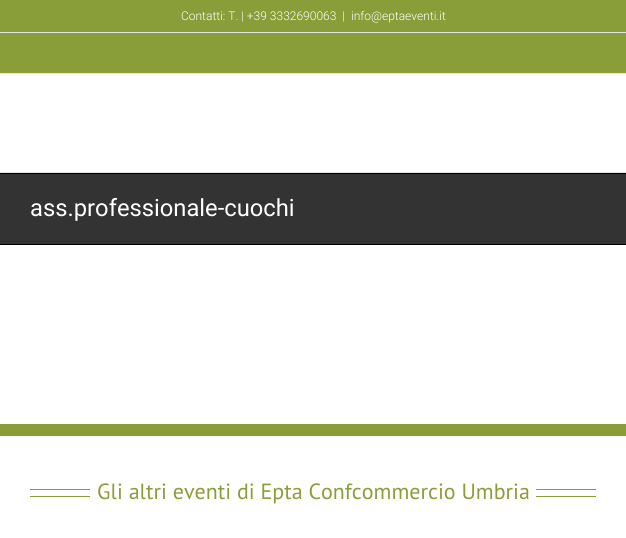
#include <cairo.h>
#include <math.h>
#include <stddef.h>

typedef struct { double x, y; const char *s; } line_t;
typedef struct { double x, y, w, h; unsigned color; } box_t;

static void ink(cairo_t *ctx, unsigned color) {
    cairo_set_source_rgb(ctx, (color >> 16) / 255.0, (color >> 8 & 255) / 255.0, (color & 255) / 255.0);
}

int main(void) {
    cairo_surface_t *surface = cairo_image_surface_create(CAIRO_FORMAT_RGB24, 626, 538);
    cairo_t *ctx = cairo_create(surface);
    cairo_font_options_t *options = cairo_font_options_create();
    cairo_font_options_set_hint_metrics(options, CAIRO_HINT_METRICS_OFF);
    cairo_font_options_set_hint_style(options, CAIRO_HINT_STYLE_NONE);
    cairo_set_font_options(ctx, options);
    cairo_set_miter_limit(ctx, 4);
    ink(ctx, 0xFFFFFF);
    cairo_paint(ctx);
    {
        static const box_t items[] = {
            {0, 0, 626, 73, 0x899E39},
            {0, 73, 626, 1, 0xE5E5E5},
            {0, 32, 626, 1, 0xE5E5E5},
        };
        for (size_t i = 0; i < sizeof items / sizeof *items; i++) {
            ink(ctx, items[i].color);
            cairo_rectangle(ctx, items[i].x, items[i].y, items[i].w, items[i].h);
            cairo_fill(ctx);
        }
    }
    cairo_select_font_face(ctx, "Roboto Light", CAIRO_FONT_SLANT_NORMAL, CAIRO_FONT_WEIGHT_NORMAL);
    cairo_set_font_size(ctx, 12);
    ink(ctx, 0xFFFFFF);
    {
        static const line_t items[] = {
            {181, 20, "Contatti: T. | +39 3332690063"},
            {342, 20, "|"},
            {351, 20, "info@eptaeventi.it"},
        };
        for (size_t i = 0; i < sizeof items / sizeof *items; i++) {
            cairo_move_to(ctx, items[i].x, items[i].y);
            cairo_show_text(ctx, items[i].s);
        }
    }
    {
        static const box_t items[] = {
            {0, 172, 626, 1, 0xE5E5E5},
            {0, 174, 626, 70, 0x333333},
            {0, 173, 626, 1, 0x000000},
            {0, 244, 626, 1, 0x000000},
        };
        for (size_t i = 0; i < sizeof items / sizeof *items; i++) {
            ink(ctx, items[i].color);
            cairo_rectangle(ctx, items[i].x, items[i].y, items[i].w, items[i].h);
            cairo_fill(ctx);
        }
    }
    cairo_select_font_face(ctx, "Roboto", CAIRO_FONT_SLANT_NORMAL, CAIRO_FONT_WEIGHT_NORMAL);
    cairo_set_font_size(ctx, 23.75);
    ink(ctx, 0xFFFFFF);
    cairo_move_to(ctx, 30, 216);
    cairo_show_text(ctx, "ass.professionale-cuochi");
    {
        static const box_t items[] = {
            {0, 424, 626, 12, 0x899E39},
            {30, 489, 60, 1, 0x899E39},
            {30, 496, 60, 1, 0x899E39},
        };
        for (size_t i = 0; i < sizeof items / sizeof *items; i++) {
            ink(ctx, items[i].color);
            cairo_rectangle(ctx, items[i].x, items[i].y, items[i].w, items[i].h);
            cairo_fill(ctx);
        }
    }
    cairo_select_font_face(ctx, "PT Sans", CAIRO_FONT_SLANT_NORMAL, CAIRO_FONT_WEIGHT_NORMAL);
    cairo_set_font_size(ctx, 22);
    cairo_move_to(ctx, 97, 499);
    cairo_show_text(ctx, "Gli altri eventi di Epta Confcommercio Umbria");
    cairo_rectangle(ctx, 536, 489, 60, 1);
    cairo_fill(ctx);
    cairo_rectangle(ctx, 536, 496, 60, 1);
    cairo_fill(ctx);
    cairo_surface_write_to_png(surface, "image.png");
    cairo_font_options_destroy(options);
    cairo_destroy(ctx);
    cairo_surface_destroy(surface);
    return 0;
}
